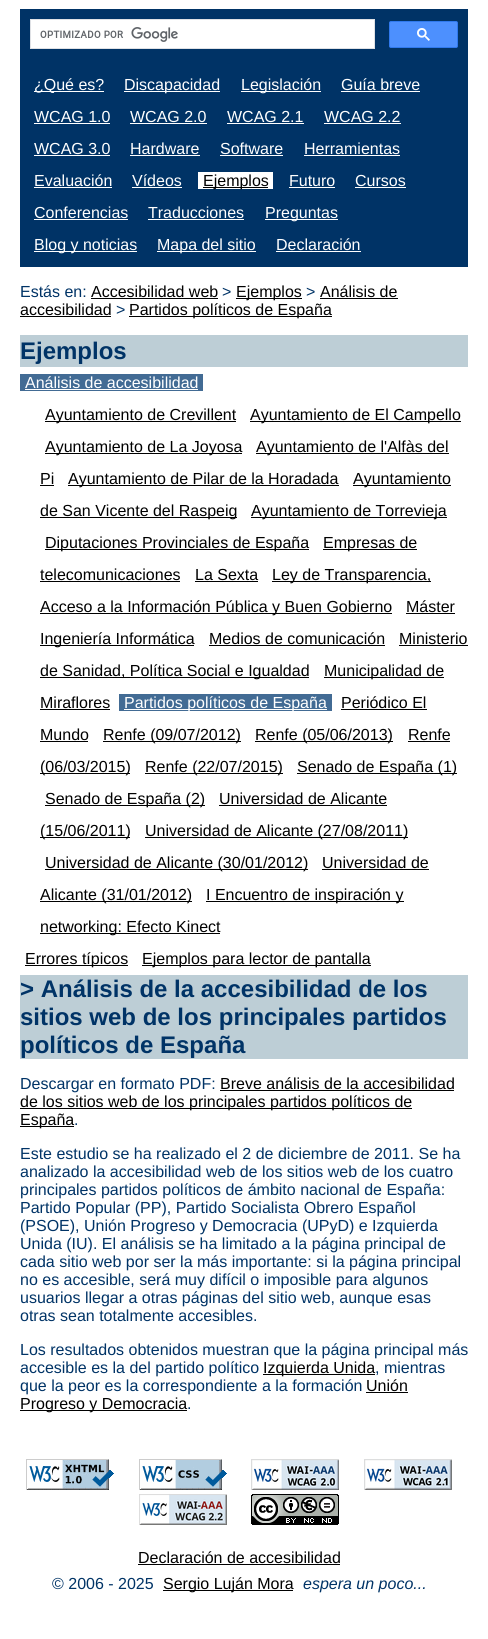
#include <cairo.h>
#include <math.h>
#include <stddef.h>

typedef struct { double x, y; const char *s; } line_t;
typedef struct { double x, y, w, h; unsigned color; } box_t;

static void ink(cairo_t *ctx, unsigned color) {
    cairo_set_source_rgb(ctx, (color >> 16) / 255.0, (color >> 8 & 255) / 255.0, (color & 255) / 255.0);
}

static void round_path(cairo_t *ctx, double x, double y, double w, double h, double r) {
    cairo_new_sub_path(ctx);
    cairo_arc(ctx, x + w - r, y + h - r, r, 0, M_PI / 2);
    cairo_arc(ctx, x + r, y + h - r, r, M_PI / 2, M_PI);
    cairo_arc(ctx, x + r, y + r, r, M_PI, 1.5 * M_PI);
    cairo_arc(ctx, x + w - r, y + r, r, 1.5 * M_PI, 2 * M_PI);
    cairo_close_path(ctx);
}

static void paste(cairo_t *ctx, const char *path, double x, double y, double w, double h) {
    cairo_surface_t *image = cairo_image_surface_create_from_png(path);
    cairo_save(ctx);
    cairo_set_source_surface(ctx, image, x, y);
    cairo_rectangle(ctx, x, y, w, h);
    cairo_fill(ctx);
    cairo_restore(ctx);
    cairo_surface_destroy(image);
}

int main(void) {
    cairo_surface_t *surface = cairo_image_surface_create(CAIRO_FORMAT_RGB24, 488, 1639);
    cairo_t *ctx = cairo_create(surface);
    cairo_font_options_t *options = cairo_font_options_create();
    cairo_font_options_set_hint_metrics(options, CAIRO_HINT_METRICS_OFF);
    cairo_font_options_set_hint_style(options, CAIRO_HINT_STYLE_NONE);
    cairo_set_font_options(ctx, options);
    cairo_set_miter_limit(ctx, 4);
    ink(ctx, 0xFFFFFF);
    cairo_paint(ctx);
    ink(ctx, 0x003366);
    cairo_rectangle(ctx, 20, 9, 448, 258);
    cairo_fill(ctx);
    ink(ctx, 0xFFFFFF);
    cairo_rectangle(ctx, 30.5, 19.5, 344, 29);
    cairo_fill_preserve(ctx);
    ink(ctx, 0xDFE1E5);
    cairo_set_line_width(ctx, 1);
    cairo_stroke(ctx);
    paste(ctx, "media/1.png", 40, 27, 138, 15);
    ink(ctx, 0x4D90FE);
    round_path(ctx, 389.5, 21.5, 68, 26, 1.5);
    cairo_fill_preserve(ctx);
    ink(ctx, 0x3079ED);
    cairo_stroke(ctx);
    paste(ctx, "media/2.png", 417, 28, 13, 13);
    ink(ctx, 0xFFFFFF);
    cairo_rectangle(ctx, 34, 91, 70, 1);
    cairo_fill(ctx);
    cairo_select_font_face(ctx, "Liberation Sans", CAIRO_FONT_SLANT_NORMAL, CAIRO_FONT_WEIGHT_NORMAL);
    cairo_set_font_size(ctx, 16);
    cairo_move_to(ctx, 34, 90);
    cairo_show_text(ctx, "¿Qué es?");
    cairo_rectangle(ctx, 124, 91, 96, 1);
    cairo_fill(ctx);
    cairo_move_to(ctx, 124, 90);
    cairo_show_text(ctx, "Discapacidad");
    cairo_rectangle(ctx, 241, 91, 80, 1);
    cairo_fill(ctx);
    cairo_move_to(ctx, 241, 90);
    cairo_show_text(ctx, "Legislación");
    cairo_move_to(ctx, 341, 90);
    cairo_show_text(ctx, "Guía breve");
    cairo_rectangle(ctx, 341, 91, 79, 1);
    cairo_fill(ctx);
    cairo_move_to(ctx, 34, 122);
    cairo_show_text(ctx, "WCAG 1.0");
    cairo_rectangle(ctx, 34, 123, 76, 1);
    cairo_fill(ctx);
    cairo_move_to(ctx, 130, 122);
    cairo_show_text(ctx, "WCAG 2.0");
    cairo_rectangle(ctx, 130, 123, 77, 1);
    cairo_fill(ctx);
    cairo_move_to(ctx, 227, 122);
    cairo_show_text(ctx, "WCAG 2.1");
    cairo_rectangle(ctx, 227, 123, 77, 1);
    cairo_fill(ctx);
    cairo_move_to(ctx, 324, 122);
    cairo_show_text(ctx, "WCAG 2.2");
    cairo_rectangle(ctx, 324, 123, 77, 1);
    cairo_fill(ctx);
    cairo_move_to(ctx, 34, 154);
    cairo_show_text(ctx, "WCAG 3.0");
    cairo_rectangle(ctx, 34, 155, 76, 1);
    cairo_fill(ctx);
    cairo_move_to(ctx, 130, 154);
    cairo_show_text(ctx, "Hardware");
    cairo_rectangle(ctx, 130, 155, 70, 1);
    cairo_fill(ctx);
    cairo_move_to(ctx, 220, 154);
    cairo_show_text(ctx, "Software");
    cairo_rectangle(ctx, 220, 155, 63, 1);
    cairo_fill(ctx);
    cairo_move_to(ctx, 304, 154);
    cairo_show_text(ctx, "Herramientas");
    cairo_rectangle(ctx, 304, 155, 96, 1);
    cairo_fill(ctx);
    cairo_move_to(ctx, 34, 186);
    cairo_show_text(ctx, "Evaluación");
    cairo_rectangle(ctx, 34, 187, 78, 1);
    cairo_fill(ctx);
    cairo_move_to(ctx, 132, 186);
    cairo_show_text(ctx, "Vídeos");
    {
        static const box_t items[] = {
            {132, 187, 50, 1, 0xFFFFFF},
            {198, 172, 75, 17, 0xFFFFFF},
            {203, 187, 65, 1, 0x000000},
        };
        for (size_t i = 0; i < sizeof items / sizeof *items; i++) {
            ink(ctx, items[i].color);
            cairo_rectangle(ctx, items[i].x, items[i].y, items[i].w, items[i].h);
            cairo_fill(ctx);
        }
    }
    cairo_move_to(ctx, 203, 186);
    cairo_show_text(ctx, "Ejemplos");
    ink(ctx, 0xFFFFFF);
    cairo_move_to(ctx, 289, 186);
    cairo_show_text(ctx, "Futuro");
    cairo_rectangle(ctx, 289, 187, 46, 1);
    cairo_fill(ctx);
    cairo_move_to(ctx, 355, 186);
    cairo_show_text(ctx, "Cursos");
    cairo_rectangle(ctx, 355, 187, 51, 1);
    cairo_fill(ctx);
    cairo_move_to(ctx, 34, 218);
    cairo_show_text(ctx, "Conferencias");
    cairo_rectangle(ctx, 34, 219, 94, 1);
    cairo_fill(ctx);
    cairo_move_to(ctx, 148, 218);
    cairo_show_text(ctx, "Traducciones");
    cairo_rectangle(ctx, 148, 219, 96, 1);
    cairo_fill(ctx);
    cairo_rectangle(ctx, 265, 219, 73, 1);
    cairo_fill(ctx);
    cairo_move_to(ctx, 265, 218);
    cairo_show_text(ctx, "Preguntas");
    cairo_rectangle(ctx, 34, 251, 103, 1);
    cairo_fill(ctx);
    cairo_move_to(ctx, 34, 250);
    cairo_show_text(ctx, "Blog y noticias");
    cairo_rectangle(ctx, 157, 251, 99, 1);
    cairo_fill(ctx);
    cairo_move_to(ctx, 157, 250);
    cairo_show_text(ctx, "Mapa del sitio");
    cairo_move_to(ctx, 276, 250);
    cairo_show_text(ctx, "Declaración");
    cairo_rectangle(ctx, 276, 251, 85, 1);
    cairo_fill(ctx);
    ink(ctx, 0x003366);
    cairo_move_to(ctx, 20, 297);
    cairo_show_text(ctx, "Estás en:");
    ink(ctx, 0x000000);
    cairo_move_to(ctx, 91, 297);
    cairo_show_text(ctx, "Accesibilidad web");
    cairo_rectangle(ctx, 91, 298, 127, 1);
    cairo_fill(ctx);
    ink(ctx, 0x003366);
    cairo_move_to(ctx, 222, 297);
    cairo_show_text(ctx, ">");
    ink(ctx, 0x000000);
    cairo_rectangle(ctx, 236, 298, 66, 1);
    cairo_fill(ctx);
    cairo_move_to(ctx, 236, 297);
    cairo_show_text(ctx, "Ejemplos");
    ink(ctx, 0x003366);
    cairo_move_to(ctx, 306, 297);
    cairo_show_text(ctx, ">");
    ink(ctx, 0x000000);
    cairo_move_to(ctx, 320, 297);
    cairo_show_text(ctx, "Análisis de");
    cairo_rectangle(ctx, 320, 298, 78, 1);
    cairo_fill(ctx);
    cairo_move_to(ctx, 20, 315);
    cairo_show_text(ctx, "accesibilidad");
    cairo_rectangle(ctx, 20, 316, 91, 1);
    cairo_fill(ctx);
    ink(ctx, 0x003366);
    cairo_move_to(ctx, 116, 315);
    cairo_show_text(ctx, ">");
    ink(ctx, 0x000000);
    cairo_rectangle(ctx, 129, 316, 203, 1);
    cairo_fill(ctx);
    cairo_move_to(ctx, 129, 315);
    cairo_show_text(ctx, "Partidos políticos de España");
    ink(ctx, 0xBDCED6);
    cairo_rectangle(ctx, 20, 335, 448, 32);
    cairo_fill(ctx);
    cairo_select_font_face(ctx, "Liberation Sans", CAIRO_FONT_SLANT_NORMAL, CAIRO_FONT_WEIGHT_BOLD);
    cairo_set_font_size(ctx, 24);
    ink(ctx, 0x003366);
    cairo_move_to(ctx, 20, 359);
    cairo_show_text(ctx, "Ejemplos");
    ink(ctx, 0x426B94);
    cairo_rectangle(ctx, 20, 374, 183, 17);
    cairo_fill(ctx);
    cairo_select_font_face(ctx, "Liberation Sans", CAIRO_FONT_SLANT_NORMAL, CAIRO_FONT_WEIGHT_NORMAL);
    cairo_set_font_size(ctx, 16);
    ink(ctx, 0xFFFFFF);
    cairo_move_to(ctx, 25, 388);
    cairo_show_text(ctx, "Análisis de accesibilidad");
    cairo_rectangle(ctx, 25, 389, 173, 1);
    cairo_fill(ctx);
    ink(ctx, 0x000000);
    cairo_rectangle(ctx, 45, 421, 191, 1);
    cairo_fill(ctx);
    cairo_move_to(ctx, 45, 420);
    cairo_show_text(ctx, "Ayuntamiento de Crevillent");
    cairo_rectangle(ctx, 250, 421, 211, 1);
    cairo_fill(ctx);
    cairo_move_to(ctx, 250, 420);
    cairo_show_text(ctx, "Ayuntamiento de El Campello");
    cairo_rectangle(ctx, 45, 453, 197, 1);
    cairo_fill(ctx);
    cairo_move_to(ctx, 45, 452);
    cairo_show_text(ctx, "Ayuntamiento de La Joyosa");
    cairo_rectangle(ctx, 256, 453, 193, 1);
    cairo_fill(ctx);
    cairo_move_to(ctx, 256, 452);
    cairo_show_text(ctx, "Ayuntamiento de l'Alfàs del");
    cairo_move_to(ctx, 40, 484);
    cairo_show_text(ctx, "Pi");
    cairo_rectangle(ctx, 40, 485, 14, 1);
    cairo_fill(ctx);
    cairo_rectangle(ctx, 68, 485, 271, 1);
    cairo_fill(ctx);
    cairo_move_to(ctx, 68, 484);
    cairo_show_text(ctx, "Ayuntamiento de Pilar de la Horadada");
    cairo_rectangle(ctx, 353, 485, 98, 1);
    cairo_fill(ctx);
    cairo_move_to(ctx, 353, 484);
    cairo_show_text(ctx, "Ayuntamiento");
    cairo_rectangle(ctx, 40, 517, 197, 1);
    cairo_fill(ctx);
    cairo_move_to(ctx, 40, 516);
    cairo_show_text(ctx, "de San Vicente del Raspeig");
    cairo_rectangle(ctx, 251, 517, 196, 1);
    cairo_fill(ctx);
    cairo_move_to(ctx, 251, 516);
    cairo_show_text(ctx, "Ayuntamiento de Torrevieja");
    cairo_rectangle(ctx, 45, 549, 264, 1);
    cairo_fill(ctx);
    cairo_move_to(ctx, 45, 548);
    cairo_show_text(ctx, "Diputaciones Provinciales de España");
    cairo_rectangle(ctx, 323, 549, 94, 1);
    cairo_fill(ctx);
    cairo_move_to(ctx, 323, 548);
    cairo_show_text(ctx, "Empresas de");
    cairo_move_to(ctx, 40, 580);
    cairo_show_text(ctx, "telecomunicaciones");
    cairo_rectangle(ctx, 40, 581, 140, 1);
    cairo_fill(ctx);
    cairo_move_to(ctx, 195, 580);
    cairo_show_text(ctx, "La Sexta");
    cairo_rectangle(ctx, 195, 581, 63, 1);
    cairo_fill(ctx);
    cairo_rectangle(ctx, 272, 581, 159, 1);
    cairo_fill(ctx);
    cairo_move_to(ctx, 272, 580);
    cairo_show_text(ctx, "Ley de Transparencia,");
    cairo_rectangle(ctx, 40, 613, 352, 1);
    cairo_fill(ctx);
    cairo_move_to(ctx, 40, 612);
    cairo_show_text(ctx, "Acceso a la Información Pública y Buen Gobierno");
    cairo_move_to(ctx, 406, 612);
    cairo_show_text(ctx, "Máster");
    cairo_rectangle(ctx, 406, 613, 49, 1);
    cairo_fill(ctx);
    cairo_rectangle(ctx, 40, 645, 154, 1);
    cairo_fill(ctx);
    cairo_move_to(ctx, 40, 644);
    cairo_show_text(ctx, "Ingeniería Informática");
    cairo_move_to(ctx, 209, 644);
    cairo_show_text(ctx, "Medios de comunicación");
    cairo_rectangle(ctx, 209, 645, 176, 1);
    cairo_fill(ctx);
    cairo_move_to(ctx, 399, 644);
    cairo_show_text(ctx, "Ministerio");
    cairo_rectangle(ctx, 399, 645, 69, 1);
    cairo_fill(ctx);
    cairo_rectangle(ctx, 40, 677, 269, 1);
    cairo_fill(ctx);
    cairo_move_to(ctx, 40, 676);
    cairo_show_text(ctx, "de Sanidad, Política Social e Igualdad");
    cairo_rectangle(ctx, 324, 677, 120, 1);
    cairo_fill(ctx);
    cairo_move_to(ctx, 324, 676);
    cairo_show_text(ctx, "Municipalidad de");
    cairo_move_to(ctx, 40, 708);
    cairo_show_text(ctx, "Miraflores");
    {
        static const box_t items[] = {
            {40, 709, 70, 1, 0x000000},
            {119, 694, 213, 17, 0x426B94},
            {124, 709, 203, 1, 0xFFFFFF},
        };
        for (size_t i = 0; i < sizeof items / sizeof *items; i++) {
            ink(ctx, items[i].color);
            cairo_rectangle(ctx, items[i].x, items[i].y, items[i].w, items[i].h);
            cairo_fill(ctx);
        }
    }
    cairo_move_to(ctx, 124, 708);
    cairo_show_text(ctx, "Partidos políticos de España");
    ink(ctx, 0x000000);
    cairo_move_to(ctx, 341, 708);
    cairo_show_text(ctx, "Periódico El");
    cairo_rectangle(ctx, 341, 709, 86, 1);
    cairo_fill(ctx);
    cairo_move_to(ctx, 40, 740);
    cairo_show_text(ctx, "Mundo");
    cairo_rectangle(ctx, 40, 741, 48, 1);
    cairo_fill(ctx);
    cairo_rectangle(ctx, 103, 741, 138, 1);
    cairo_fill(ctx);
    cairo_move_to(ctx, 103, 740);
    cairo_show_text(ctx, "Renfe (09/07/2012)");
    cairo_rectangle(ctx, 255, 741, 138, 1);
    cairo_fill(ctx);
    cairo_move_to(ctx, 255, 740);
    cairo_show_text(ctx, "Renfe (05/06/2013)");
    cairo_move_to(ctx, 408, 740);
    cairo_show_text(ctx, "Renfe");
    cairo_rectangle(ctx, 408, 741, 42, 1);
    cairo_fill(ctx);
    cairo_rectangle(ctx, 40, 773, 90, 1);
    cairo_fill(ctx);
    cairo_move_to(ctx, 40, 772);
    cairo_show_text(ctx, "(06/03/2015)");
    cairo_rectangle(ctx, 145, 773, 138, 1);
    cairo_fill(ctx);
    cairo_move_to(ctx, 145, 772);
    cairo_show_text(ctx, "Renfe (22/07/2015)");
    cairo_rectangle(ctx, 297, 773, 160, 1);
    cairo_fill(ctx);
    cairo_move_to(ctx, 297, 772);
    cairo_show_text(ctx, "Senado de España (1)");
    cairo_rectangle(ctx, 45, 805, 160, 1);
    cairo_fill(ctx);
    cairo_move_to(ctx, 45, 804);
    cairo_show_text(ctx, "Senado de España (2)");
    cairo_move_to(ctx, 219, 804);
    cairo_show_text(ctx, "Universidad de Alicante");
    cairo_rectangle(ctx, 219, 805, 168, 1);
    cairo_fill(ctx);
    cairo_rectangle(ctx, 40, 837, 90, 1);
    cairo_fill(ctx);
    cairo_move_to(ctx, 40, 836);
    cairo_show_text(ctx, "(15/06/2011)");
    cairo_rectangle(ctx, 145, 837, 263, 1);
    cairo_fill(ctx);
    cairo_move_to(ctx, 145, 836);
    cairo_show_text(ctx, "Universidad de Alicante (27/08/2011)");
    cairo_rectangle(ctx, 45, 869, 263, 1);
    cairo_fill(ctx);
    cairo_move_to(ctx, 45, 868);
    cairo_show_text(ctx, "Universidad de Alicante (30/01/2012)");
    cairo_move_to(ctx, 322, 868);
    cairo_show_text(ctx, "Universidad de");
    cairo_rectangle(ctx, 322, 869, 107, 1);
    cairo_fill(ctx);
    cairo_rectangle(ctx, 40, 901, 152, 1);
    cairo_fill(ctx);
    cairo_move_to(ctx, 40, 900);
    cairo_show_text(ctx, "Alicante (31/01/2012)");
    cairo_rectangle(ctx, 206, 901, 198, 1);
    cairo_fill(ctx);
    cairo_move_to(ctx, 206, 900);
    cairo_show_text(ctx, "I Encuentro de inspiración y");
    cairo_rectangle(ctx, 40, 933, 180, 1);
    cairo_fill(ctx);
    cairo_move_to(ctx, 40, 932);
    cairo_show_text(ctx, "networking: Efecto Kinect");
    cairo_rectangle(ctx, 25, 965, 103, 1);
    cairo_fill(ctx);
    cairo_move_to(ctx, 25, 964);
    cairo_show_text(ctx, "Errores típicos");
    cairo_rectangle(ctx, 142, 965, 229, 1);
    cairo_fill(ctx);
    cairo_move_to(ctx, 142, 964);
    cairo_show_text(ctx, "Ejemplos para lector de pantalla");
    ink(ctx, 0xBDCED6);
    cairo_rectangle(ctx, 20, 975, 448, 84);
    cairo_fill(ctx);
    cairo_select_font_face(ctx, "Liberation Sans", CAIRO_FONT_SLANT_NORMAL, CAIRO_FONT_WEIGHT_BOLD);
    cairo_set_font_size(ctx, 24);
    ink(ctx, 0x003366);
    {
        static const line_t items[] = {
            {20, 997, "> Análisis de la accesibilidad de los"},
            {20, 1025, "sitios web de los principales partidos"},
            {20, 1053, "políticos de España"},
        };
        for (size_t i = 0; i < sizeof items / sizeof *items; i++) {
            cairo_move_to(ctx, items[i].x, items[i].y);
            cairo_show_text(ctx, items[i].s);
        }
    }
    cairo_select_font_face(ctx, "Liberation Sans", CAIRO_FONT_SLANT_NORMAL, CAIRO_FONT_WEIGHT_NORMAL);
    cairo_set_font_size(ctx, 16);
    cairo_move_to(ctx, 20, 1089);
    cairo_show_text(ctx, "Descargar en formato PDF:");
    ink(ctx, 0x000000);
    cairo_move_to(ctx, 220, 1089);
    cairo_show_text(ctx, "Breve análisis de la accesibilidad");
    cairo_rectangle(ctx, 220, 1090, 234, 1);
    cairo_fill(ctx);
    cairo_rectangle(ctx, 20, 1108, 392, 1);
    cairo_fill(ctx);
    cairo_move_to(ctx, 20, 1107);
    cairo_show_text(ctx, "de los sitios web de los principales partidos políticos de");
    cairo_rectangle(ctx, 20, 1126, 54, 1);
    cairo_fill(ctx);
    cairo_move_to(ctx, 20, 1125);
    cairo_show_text(ctx, "España");
    ink(ctx, 0x003366);
    {
        static const line_t items[] = {
            {74, 1125, "."},
            {20, 1159, "Este estudio se ha realizado el 2 de diciembre de 2011. Se ha"},
            {20, 1177, "analizado la accesibilidad web de los sitios web de los cuatro"},
            {20, 1195, "principales partidos políticos de ámbito nacional de España:"},
            {20, 1213, "Partido Popular (PP), Partido Socialista Obrero Español"},
            {20, 1231, "(PSOE), Unión Progreso y Democracia (UPyD) e Izquierda"},
            {20, 1249, "Unida (IU). El análisis se ha limitado a la página principal de"},
            {20, 1267, "cada sitio web por ser la más importante: si la página principal"},
            {20, 1285, "no es accesible, será muy difícil o imposible para algunos"},
            {20, 1303, "usuarios llegar a otras páginas del sitio web, aunque esas"},
            {20, 1321, "otras sean totalmente accesibles."},
            {20, 1355, "Los resultados obtenidos muestran que la página principal más"},
            {20, 1373, "accesible es la del partido político"},
        };
        for (size_t i = 0; i < sizeof items / sizeof *items; i++) {
            cairo_move_to(ctx, items[i].x, items[i].y);
            cairo_show_text(ctx, items[i].s);
        }
    }
    ink(ctx, 0x000000);
    cairo_rectangle(ctx, 263, 1374, 112, 1);
    cairo_fill(ctx);
    cairo_move_to(ctx, 263, 1373);
    cairo_show_text(ctx, "Izquierda Unida");
    ink(ctx, 0x003366);
    cairo_move_to(ctx, 375, 1373);
    cairo_show_text(ctx, ", mientras");
    cairo_move_to(ctx, 20, 1391);
    cairo_show_text(ctx, "que la peor es la correspondiente a la formación");
    ink(ctx, 0x000000);
    cairo_move_to(ctx, 366, 1391);
    cairo_show_text(ctx, "Unión");
    cairo_rectangle(ctx, 366, 1392, 42, 1);
    cairo_fill(ctx);
    cairo_rectangle(ctx, 20, 1410, 167, 1);
    cairo_fill(ctx);
    cairo_move_to(ctx, 20, 1409);
    cairo_show_text(ctx, "Progreso y Democracia");
    ink(ctx, 0x003366);
    cairo_move_to(ctx, 187, 1409);
    cairo_show_text(ctx, ".");
    paste(ctx, "media/3.png", 26, 1459, 88, 31);
    paste(ctx, "media/4.png", 139, 1459, 88, 31);
    paste(ctx, "media/5.png", 251, 1459, 88, 31);
    paste(ctx, "media/6.png", 364, 1459, 88, 31);
    paste(ctx, "media/7.png", 139, 1494, 88, 31);
    paste(ctx, "media/8.png", 251, 1494, 88, 31);
    ink(ctx, 0x000000);
    cairo_move_to(ctx, 138, 1563);
    cairo_show_text(ctx, "Declaración de accesibilidad");
    cairo_rectangle(ctx, 138, 1564, 202, 1);
    cairo_fill(ctx);
    ink(ctx, 0x003366);
    cairo_move_to(ctx, 52, 1589);
    cairo_show_text(ctx, "© 2006 - 2025");
    ink(ctx, 0x000000);
    cairo_rectangle(ctx, 163, 1590, 130, 1);
    cairo_fill(ctx);
    cairo_move_to(ctx, 163, 1589);
    cairo_show_text(ctx, "Sergio Luján Mora");
    cairo_select_font_face(ctx, "Liberation Sans", CAIRO_FONT_SLANT_ITALIC, CAIRO_FONT_WEIGHT_NORMAL);
    ink(ctx, 0x003366);
    cairo_move_to(ctx, 303, 1589);
    cairo_show_text(ctx, "espera un poco...");
    cairo_surface_write_to_png(surface, "image.png");
    cairo_font_options_destroy(options);
    cairo_destroy(ctx);
    cairo_surface_destroy(surface);
    return 0;
}
